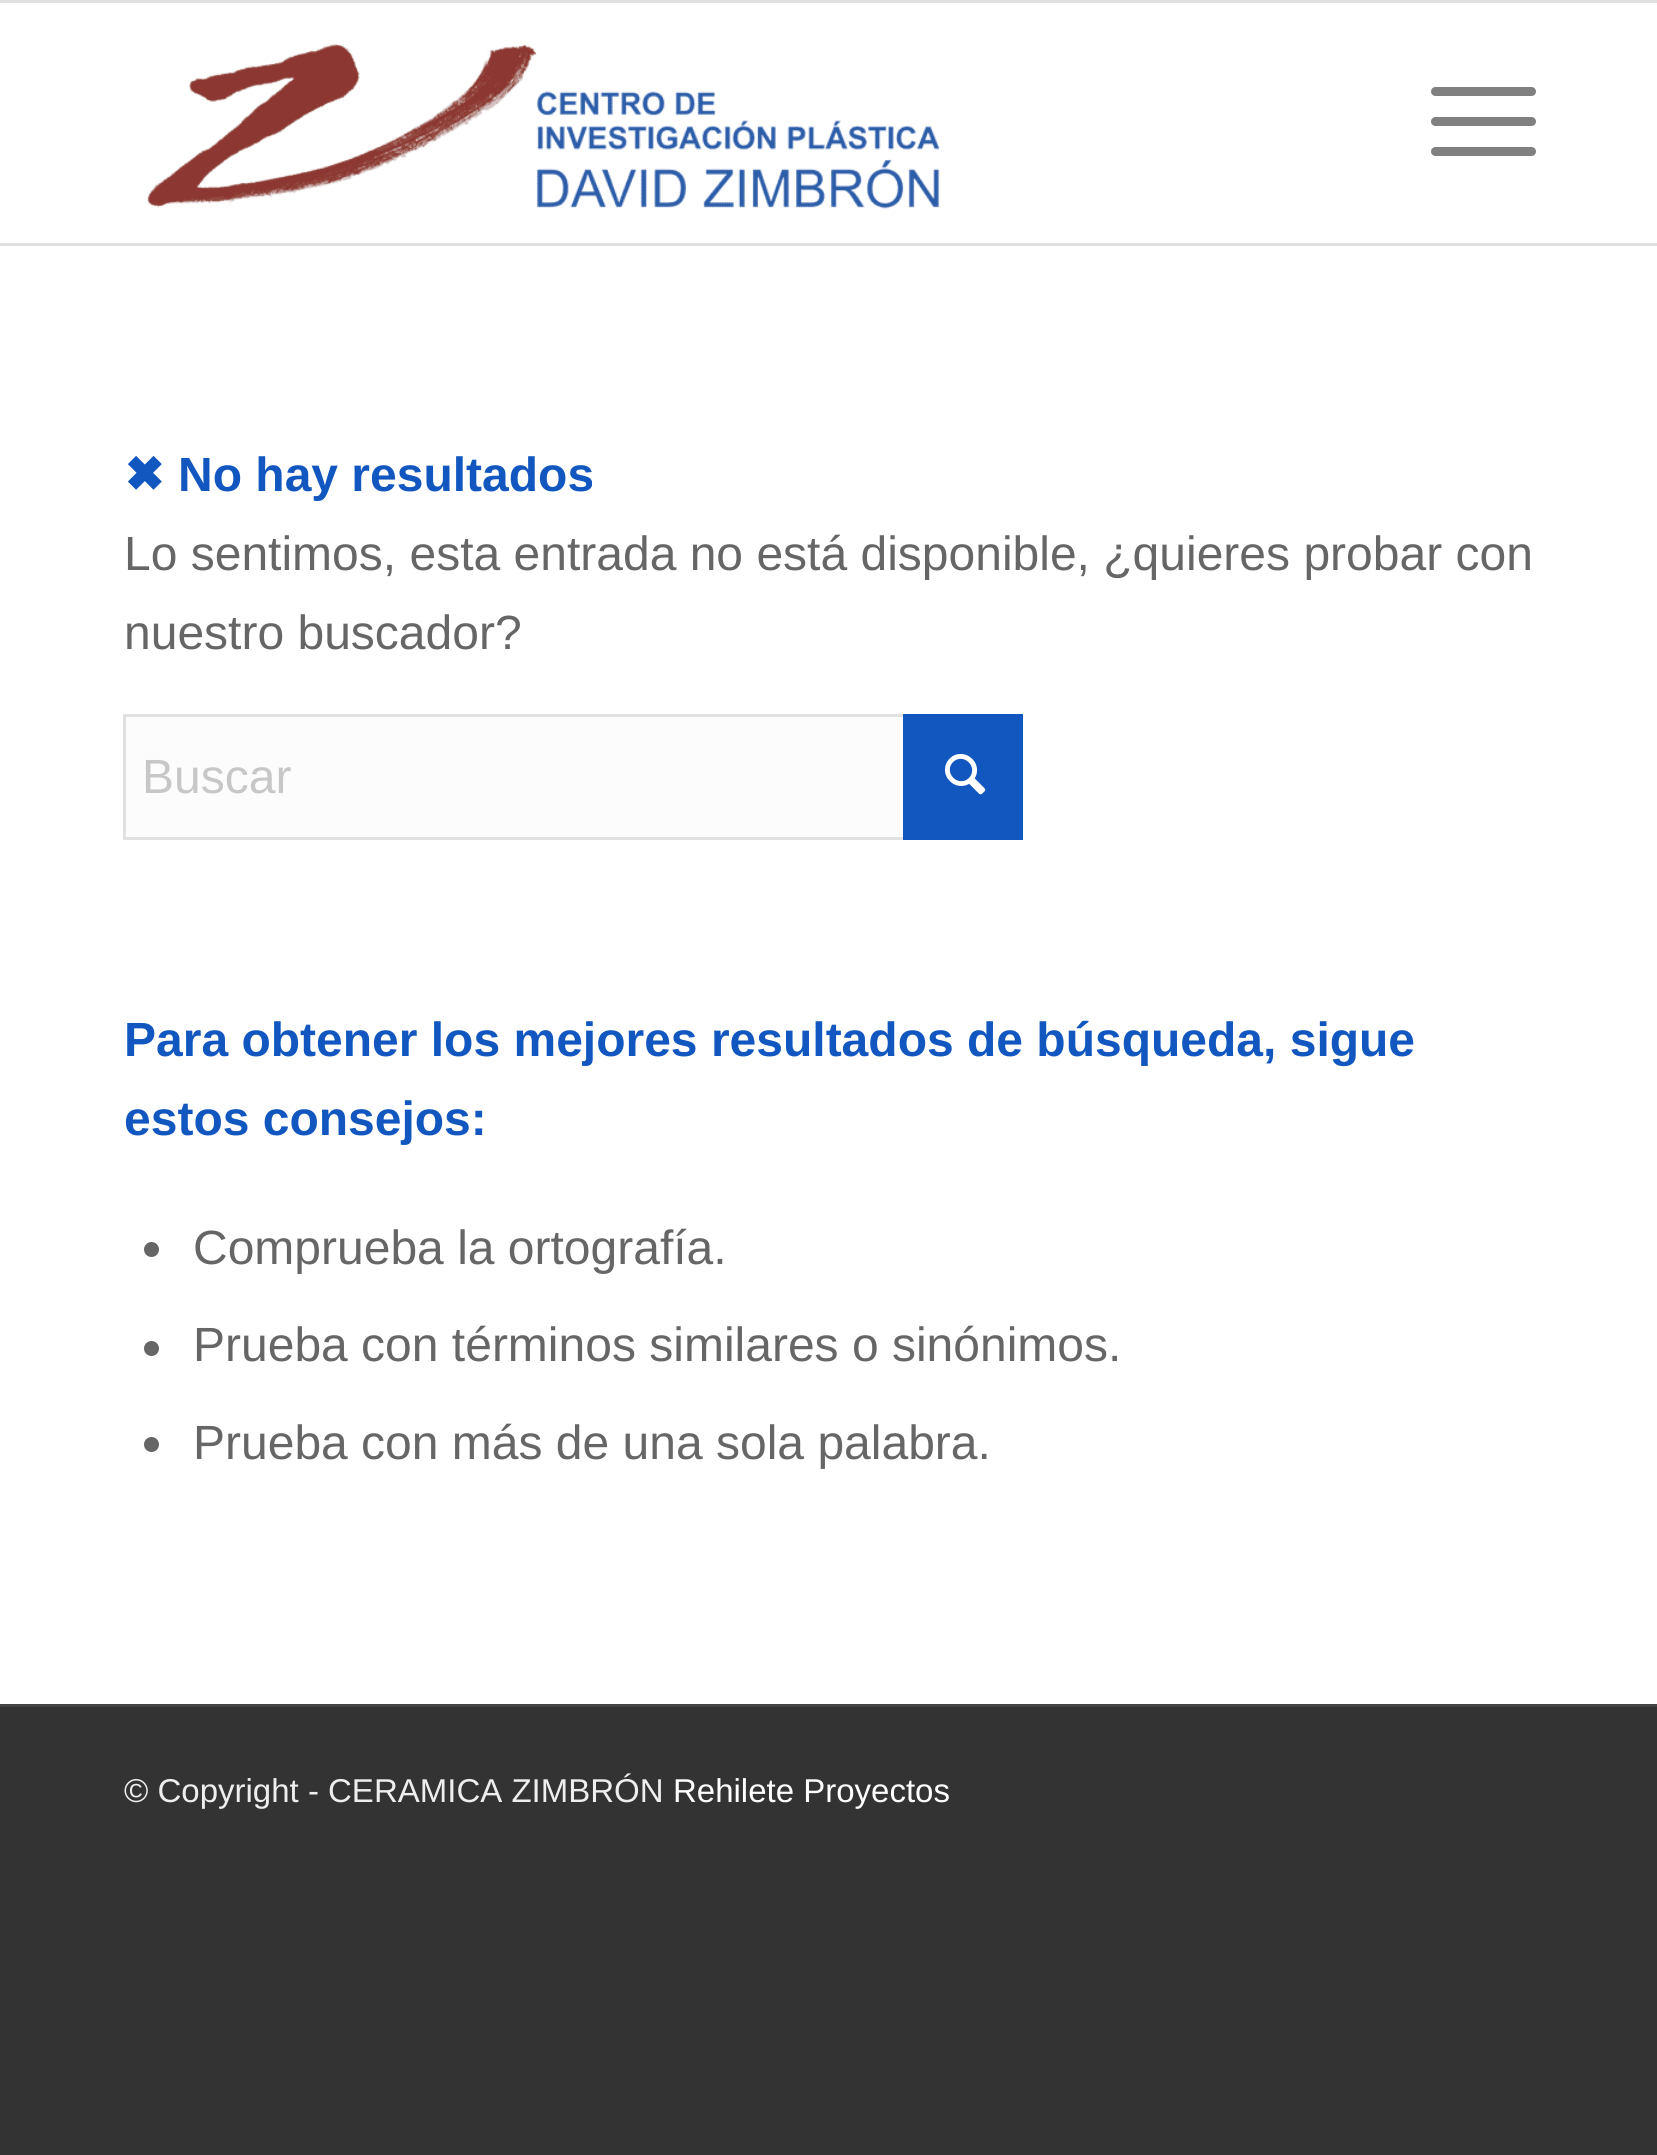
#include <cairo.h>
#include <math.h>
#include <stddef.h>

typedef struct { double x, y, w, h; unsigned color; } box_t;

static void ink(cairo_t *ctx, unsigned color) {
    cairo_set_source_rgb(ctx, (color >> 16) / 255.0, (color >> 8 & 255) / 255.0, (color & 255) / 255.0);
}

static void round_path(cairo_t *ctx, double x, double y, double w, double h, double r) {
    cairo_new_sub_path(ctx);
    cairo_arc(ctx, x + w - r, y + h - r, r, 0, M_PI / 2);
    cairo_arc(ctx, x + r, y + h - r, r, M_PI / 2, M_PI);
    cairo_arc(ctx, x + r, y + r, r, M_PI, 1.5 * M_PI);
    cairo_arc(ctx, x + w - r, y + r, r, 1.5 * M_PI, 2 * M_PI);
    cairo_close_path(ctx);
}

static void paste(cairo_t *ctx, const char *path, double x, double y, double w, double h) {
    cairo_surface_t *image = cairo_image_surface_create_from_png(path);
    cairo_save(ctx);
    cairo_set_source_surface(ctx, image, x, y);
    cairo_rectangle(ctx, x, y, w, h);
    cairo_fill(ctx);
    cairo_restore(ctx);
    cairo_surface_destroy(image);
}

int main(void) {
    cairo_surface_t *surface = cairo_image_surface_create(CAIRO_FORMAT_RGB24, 1657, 2155);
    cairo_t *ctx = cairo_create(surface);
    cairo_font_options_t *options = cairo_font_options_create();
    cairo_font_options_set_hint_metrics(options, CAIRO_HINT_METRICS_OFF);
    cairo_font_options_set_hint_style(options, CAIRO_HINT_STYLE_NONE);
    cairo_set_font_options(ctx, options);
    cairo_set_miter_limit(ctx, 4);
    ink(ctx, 0x333333);
    cairo_paint(ctx);
    {
        static const box_t items[] = {
            {0, 3, 1657, 1701, 0xFFFFFF},
            {0, 0, 1657, 3, 0xE1E1E1},
            {0, 243, 1657, 3, 0xE1E1E1},
        };
        for (size_t i = 0; i < sizeof items / sizeof *items; i++) {
            ink(ctx, items[i].color);
            cairo_rectangle(ctx, items[i].x, items[i].y, items[i].w, items[i].h);
            cairo_fill(ctx);
        }
    }
    paste(ctx, "media/1.png", 147, 43, 793, 166);
    ink(ctx, 0x808080);
    round_path(ctx, 1431, 117, 105, 9, 4.5);
    cairo_fill(ctx);
    round_path(ctx, 1431, 87, 105, 9, 4.5);
    cairo_fill(ctx);
    round_path(ctx, 1431, 147, 105, 9, 4.5);
    cairo_fill(ctx);
    cairo_select_font_face(ctx, "DejaVu Sans", CAIRO_FONT_SLANT_NORMAL, CAIRO_FONT_WEIGHT_BOLD);
    cairo_set_font_size(ctx, 48);
    ink(ctx, 0x1157BF);
    cairo_move_to(ctx, 124, 491);
    cairo_show_text(ctx, "✖");
    cairo_select_font_face(ctx, "Liberation Sans", CAIRO_FONT_SLANT_NORMAL, CAIRO_FONT_WEIGHT_BOLD);
    cairo_move_to(ctx, 178, 491);
    cairo_show_text(ctx, "No hay resultados");
    cairo_select_font_face(ctx, "Liberation Sans", CAIRO_FONT_SLANT_NORMAL, CAIRO_FONT_WEIGHT_NORMAL);
    ink(ctx, 0x666666);
    cairo_move_to(ctx, 124, 570);
    cairo_show_text(ctx, "Lo sentimos, esta entrada no está disponible, ¿quieres probar con");
    cairo_move_to(ctx, 124, 649);
    cairo_show_text(ctx, "nuestro buscador?");
    ink(ctx, 0xFCFCFC);
    cairo_rectangle(ctx, 126, 717, 777, 120);
    cairo_fill(ctx);
    cairo_rectangle(ctx, 124.5, 715.5, 897, 123);
    ink(ctx, 0xE1E1E1);
    cairo_set_line_width(ctx, 3);
    cairo_stroke(ctx);
    ink(ctx, 0xC7C7C7);
    cairo_move_to(ctx, 142, 793);
    cairo_show_text(ctx, "Buscar");
    ink(ctx, 0x1157BF);
    cairo_rectangle(ctx, 903, 714, 120, 126);
    cairo_fill(ctx);
    paste(ctx, "media/2.png", 945, 753, 41, 42);
    cairo_select_font_face(ctx, "Liberation Sans", CAIRO_FONT_SLANT_NORMAL, CAIRO_FONT_WEIGHT_BOLD);
    cairo_move_to(ctx, 124, 1056);
    cairo_show_text(ctx, "Para obtener los mejores resultados de búsqueda, sigue");
    cairo_move_to(ctx, 124, 1135);
    cairo_show_text(ctx, "estos consejos:");
    ink(ctx, 0x666666);
    cairo_new_path(ctx);
    cairo_arc(ctx, 151.5, 1249.5, 7.5, 0, 2 * M_PI);
    cairo_fill(ctx);
    cairo_select_font_face(ctx, "Liberation Sans", CAIRO_FONT_SLANT_NORMAL, CAIRO_FONT_WEIGHT_NORMAL);
    cairo_move_to(ctx, 193, 1264);
    cairo_show_text(ctx, "Comprueba la ortografía.");
    cairo_new_path(ctx);
    cairo_arc(ctx, 151.5, 1348.5, 7.5, 0, 2 * M_PI);
    cairo_fill(ctx);
    cairo_move_to(ctx, 193, 1361);
    cairo_show_text(ctx, "Prueba con términos similares o sinónimos.");
    cairo_new_path(ctx);
    cairo_arc(ctx, 151.5, 1444.5, 7.5, 0, 2 * M_PI);
    cairo_fill(ctx);
    cairo_move_to(ctx, 193, 1459);
    cairo_show_text(ctx, "Prueba con más de una sola palabra.");
    ink(ctx, 0x444444);
    cairo_rectangle(ctx, 0, 1704, 1657, 3);
    cairo_fill(ctx);
    cairo_set_font_size(ctx, 33);
    ink(ctx, 0xEEEEEE);
    cairo_move_to(ctx, 124, 1802);
    cairo_show_text(ctx, "© Copyright - CERAMICA ZIMBRÓN");
    ink(ctx, 0xFFFFFF);
    cairo_move_to(ctx, 673, 1802);
    cairo_show_text(ctx, "Rehilete Proyectos");
    cairo_surface_write_to_png(surface, "image.png");
    cairo_font_options_destroy(options);
    cairo_destroy(ctx);
    cairo_surface_destroy(surface);
    return 0;
}
